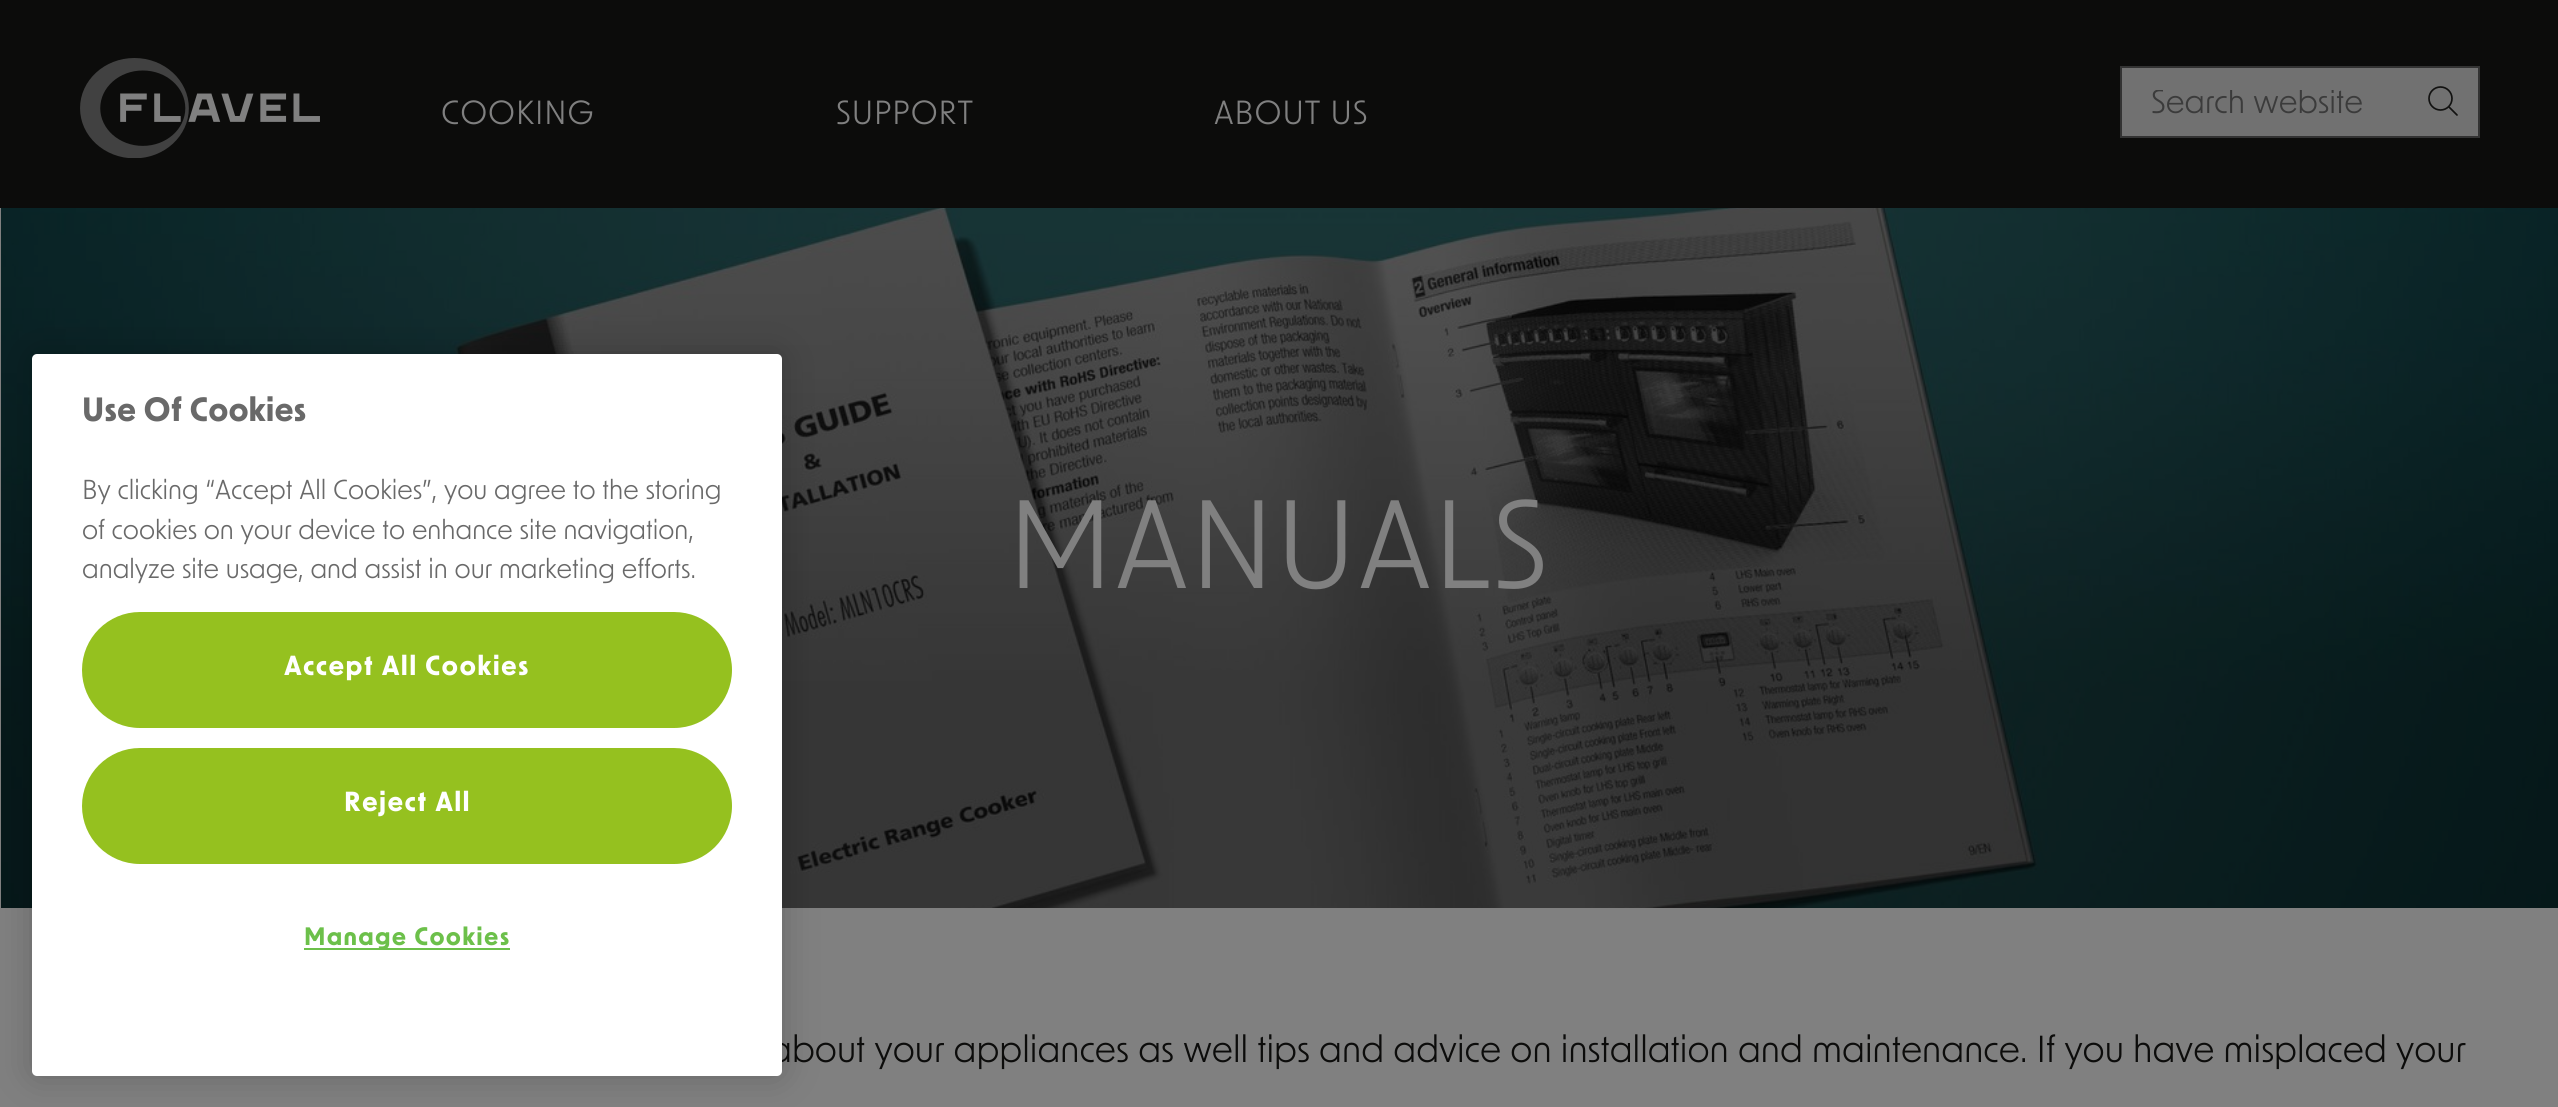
#include <cairo.h>
#include <math.h>
#include <stddef.h>

typedef struct { double x, y; const char *s; } line_t;

static void ink(cairo_t *ctx, unsigned color) {
    cairo_set_source_rgb(ctx, (color >> 16) / 255.0, (color >> 8 & 255) / 255.0, (color & 255) / 255.0);
}

static void write_spaced(cairo_t *ctx, double x, double y, const char *s, double letter, double word) {
    cairo_move_to(ctx, x, y);
    while (*s) {
        char ch[5] = {0};
        int n = 0;
        do ch[n++] = *s++; while ((*s & 0xC0) == 0x80);
        cairo_show_text(ctx, ch);
        cairo_rel_move_to(ctx, letter + word * (*ch == ' '), 0);
    }
}

static void round_path(cairo_t *ctx, double x, double y, double w, double h, double r) {
    cairo_new_sub_path(ctx);
    cairo_arc(ctx, x + w - r, y + h - r, r, 0, M_PI / 2);
    cairo_arc(ctx, x + r, y + h - r, r, M_PI / 2, M_PI);
    cairo_arc(ctx, x + r, y + r, r, M_PI, 1.5 * M_PI);
    cairo_arc(ctx, x + w - r, y + r, r, 1.5 * M_PI, 2 * M_PI);
    cairo_close_path(ctx);
}

static void blur_box(cairo_t *ctx, double x, double y, double w, double h, double r, double blur, double alpha) {
    cairo_push_group_with_content(ctx, CAIRO_CONTENT_ALPHA);
    cairo_set_operator(ctx, CAIRO_OPERATOR_SOURCE);
    for (int i = 15; i >= -15 && fmin(w, h) + blur * i / 3 > 0; i -= 2) {
        double e = blur * i / 6;
        cairo_set_source_rgba(ctx, 0, 0, 0, alpha * erfc((i - 1) / 8.5) / 2);
        round_path(ctx, x - e, y - e, w + 2 * e, h + 2 * e, fmax(0, fmin(r + e + blur * .6, fmin(w, h) / 2 + e)));
        cairo_fill(ctx);
    }
    cairo_pattern_t *soft = cairo_pop_group(ctx);
    cairo_mask(ctx, soft);
    cairo_pattern_destroy(soft);
}

static void paste(cairo_t *ctx, const char *path, double x, double y, double w, double h) {
    cairo_surface_t *image = cairo_image_surface_create_from_png(path);
    cairo_save(ctx);
    cairo_set_source_surface(ctx, image, x, y);
    cairo_rectangle(ctx, x, y, w, h);
    cairo_fill(ctx);
    cairo_restore(ctx);
    cairo_surface_destroy(image);
}

int main(void) {
    cairo_surface_t *surface = cairo_image_surface_create(CAIRO_FORMAT_RGB24, 2558, 1107);
    cairo_t *ctx = cairo_create(surface);
    cairo_font_options_t *options = cairo_font_options_create();
    cairo_font_options_set_hint_metrics(options, CAIRO_HINT_METRICS_OFF);
    cairo_font_options_set_hint_style(options, CAIRO_HINT_STYLE_NONE);
    cairo_set_font_options(ctx, options);
    cairo_set_miter_limit(ctx, 4);
    ink(ctx, 0x808080);
    cairo_paint(ctx);
    ink(ctx, 0x0C0C0B);
    cairo_rectangle(ctx, 0, 0, 2558, 208);
    cairo_fill(ctx);
    paste(ctx, "media/1.png", 80, 58, 240, 100);
    cairo_select_font_face(ctx, "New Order", CAIRO_FONT_SLANT_NORMAL, CAIRO_FONT_WEIGHT_NORMAL);
    cairo_set_font_size(ctx, 32);
    ink(ctx, 0x808080);
    {
        static const line_t items[] = {
            {441, 124, "COOKING"},
            {836, 124, "SUPPORT"},
            {1214, 124, "ABOUT US"},
        };
        for (size_t i = 0; i < sizeof items / sizeof *items; i++) {
            write_spaced(ctx, items[i].x, items[i].y, items[i].s, 1, 0);
        }
    }
    ink(ctx, 0x717171);
    cairo_rectangle(ctx, 2121, 67, 358, 70);
    cairo_fill_preserve(ctx);
    ink(ctx, 0x333333);
    cairo_stroke(ctx);
    cairo_save(ctx);
    cairo_rectangle(ctx, 2152, 90, 256, 32);
    cairo_clip(ctx);
    ink(ctx, 0x3B3B3B);
    cairo_move_to(ctx, 2151, 113);
    cairo_show_text(ctx, "Search website");
    cairo_restore(ctx);
    cairo_new_path(ctx);
    cairo_arc(ctx, 2440.5, 98.5, 11.5, 0, 2 * M_PI);
    ink(ctx, 0x121211);
    cairo_set_line_width(ctx, 1.7);
    cairo_stroke(ctx);
    cairo_new_path(ctx);
    cairo_move_to(ctx, 2457, 115);
    cairo_line_to(ctx, 2449, 107);
    cairo_set_line_cap(ctx, CAIRO_LINE_CAP_ROUND);
    cairo_stroke(ctx);
    paste(ctx, "media/2.png", 1, 208, 2557, 700);
    ink(ctx, 0x000000);
    blur_box(ctx, 32, 354, 750, 722, 5, 18, 0.2);
    cairo_set_font_size(ctx, 36);
    ink(ctx, 0x0C0C0B);
    cairo_move_to(ctx, 769, 1062);
    cairo_show_text(ctx, "about your appliances as well tips and advice on installation and maintenance. If you have misplaced your");
    ink(ctx, 0xFFFFFF);
    round_path(ctx, 32, 354, 750, 722, 5);
    cairo_fill(ctx);
    cairo_select_font_face(ctx, "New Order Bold", CAIRO_FONT_SLANT_NORMAL, CAIRO_FONT_WEIGHT_BOLD);
    cairo_set_font_size(ctx, 32);
    ink(ctx, 0x696969);
    cairo_move_to(ctx, 82, 421);
    cairo_show_text(ctx, "Use Of Cookies");
    cairo_select_font_face(ctx, "New Order", CAIRO_FONT_SLANT_NORMAL, CAIRO_FONT_WEIGHT_NORMAL);
    cairo_set_font_size(ctx, 26.25);
    {
        static const line_t items[] = {
            {82, 499, "By clicking “Accept All Cookies”, you agree to the storing"},
            {82, 539, "of cookies on your device to enhance site navigation,"},
            {82, 578, "analyze site usage, and assist in our marketing efforts."},
        };
        for (size_t i = 0; i < sizeof items / sizeof *items; i++) {
            cairo_move_to(ctx, items[i].x, items[i].y);
            cairo_show_text(ctx, items[i].s);
        }
    }
    ink(ctx, 0x95C11F);
    round_path(ctx, 82, 612, 650, 116, 58);
    cairo_fill(ctx);
    cairo_select_font_face(ctx, "New Order Bold", CAIRO_FONT_SLANT_NORMAL, CAIRO_FONT_WEIGHT_BOLD);
    ink(ctx, 0xFFFFFF);
    write_spaced(ctx, 284, 675, "Accept All Cookies", 1.3, 0);
    ink(ctx, 0x95C11F);
    round_path(ctx, 82, 748, 650, 116, 58);
    cairo_fill(ctx);
    ink(ctx, 0xFFFFFF);
    write_spaced(ctx, 344, 811, "Reject All", 1.3, 0);
    ink(ctx, 0x6CC04A);
    cairo_rectangle(ctx, 304, 948, 206, 2);
    cairo_fill(ctx);
    cairo_set_font_size(ctx, 24);
    write_spaced(ctx, 304, 945, "Manage Cookies", 1.25, 0);
    cairo_select_font_face(ctx, "New Order", CAIRO_FONT_SLANT_NORMAL, CAIRO_FONT_WEIGHT_NORMAL);
    cairo_set_font_size(ctx, 120);
    ink(ctx, 0x808080);
    write_spaced(ctx, 1008, 588, "MANUALS", 2, 0);
    cairo_surface_write_to_png(surface, "image.png");
    cairo_font_options_destroy(options);
    cairo_destroy(ctx);
    cairo_surface_destroy(surface);
    return 0;
}
